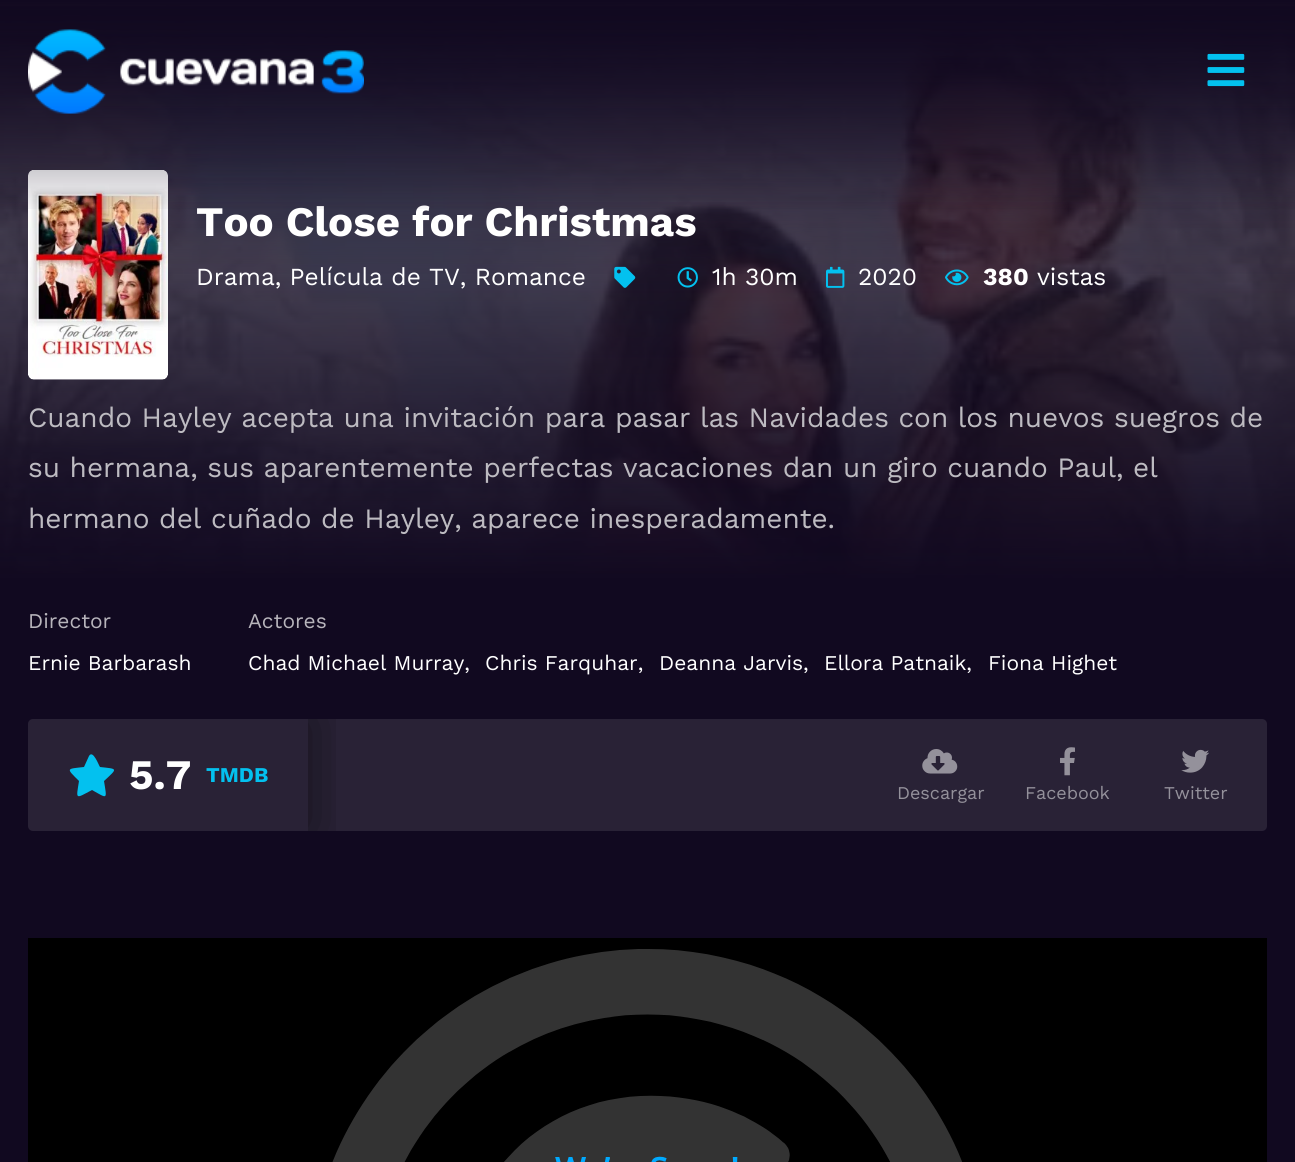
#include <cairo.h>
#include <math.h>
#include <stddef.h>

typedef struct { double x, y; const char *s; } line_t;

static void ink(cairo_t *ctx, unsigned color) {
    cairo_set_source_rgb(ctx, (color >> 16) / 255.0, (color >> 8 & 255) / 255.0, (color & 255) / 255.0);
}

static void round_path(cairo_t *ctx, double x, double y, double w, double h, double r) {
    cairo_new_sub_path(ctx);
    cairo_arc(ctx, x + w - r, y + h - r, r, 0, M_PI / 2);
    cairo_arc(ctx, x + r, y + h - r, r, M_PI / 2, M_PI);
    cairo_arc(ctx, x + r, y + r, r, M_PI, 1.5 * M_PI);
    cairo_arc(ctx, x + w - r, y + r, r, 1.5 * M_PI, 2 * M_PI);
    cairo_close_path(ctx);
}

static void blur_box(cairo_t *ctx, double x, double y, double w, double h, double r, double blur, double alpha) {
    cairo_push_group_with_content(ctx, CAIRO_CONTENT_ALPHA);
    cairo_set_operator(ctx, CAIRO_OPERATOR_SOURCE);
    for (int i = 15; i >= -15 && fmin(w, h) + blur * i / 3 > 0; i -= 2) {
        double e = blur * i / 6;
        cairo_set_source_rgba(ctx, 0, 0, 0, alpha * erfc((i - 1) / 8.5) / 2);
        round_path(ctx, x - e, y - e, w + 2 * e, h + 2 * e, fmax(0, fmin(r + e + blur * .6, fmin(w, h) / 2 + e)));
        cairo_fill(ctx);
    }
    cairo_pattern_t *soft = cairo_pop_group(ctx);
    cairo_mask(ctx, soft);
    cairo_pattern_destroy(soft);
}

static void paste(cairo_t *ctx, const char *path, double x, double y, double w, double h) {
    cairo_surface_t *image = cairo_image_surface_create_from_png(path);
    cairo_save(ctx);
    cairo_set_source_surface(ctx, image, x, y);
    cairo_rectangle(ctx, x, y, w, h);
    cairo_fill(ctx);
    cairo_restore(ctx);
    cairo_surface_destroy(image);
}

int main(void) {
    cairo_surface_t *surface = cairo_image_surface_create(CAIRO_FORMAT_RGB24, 1295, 1162);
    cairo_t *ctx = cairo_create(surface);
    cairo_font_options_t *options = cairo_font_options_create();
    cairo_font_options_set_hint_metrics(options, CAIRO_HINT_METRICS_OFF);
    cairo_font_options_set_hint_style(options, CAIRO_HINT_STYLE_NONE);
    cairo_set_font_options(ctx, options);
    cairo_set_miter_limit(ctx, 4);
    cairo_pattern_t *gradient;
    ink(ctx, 0x110920);
    cairo_paint(ctx);
    paste(ctx, "media/1.png", 0, 2, 1295, 576);
    gradient = cairo_pattern_create_linear(648, 0, 648, 280);
    cairo_pattern_add_color_stop_rgba(gradient, 0, 0.067, 0.035, 0.125, 1);
    cairo_pattern_add_color_stop_rgba(gradient, 1, 0.067, 0.035, 0.125, 0);
    cairo_set_source(ctx, gradient);
    cairo_pattern_destroy(gradient);
    cairo_rectangle(ctx, 0, 2, 1295, 272);
    cairo_fill(ctx);
    gradient = cairo_pattern_create_linear(648, 0, 648, 581);
    cairo_pattern_add_color_stop_rgba(gradient, 0, 0.067, 0.035, 0.125, 0);
    cairo_pattern_add_color_stop_rgba(gradient, 1, 0.067, 0.035, 0.125, 1);
    cairo_set_source(ctx, gradient);
    cairo_pattern_destroy(gradient);
    cairo_rectangle(ctx, 0, 63, 1295, 515);
    cairo_fill(ctx);
    paste(ctx, "media/4.png", 28, 170, 140, 210);
    cairo_select_font_face(ctx, "Work Sans", CAIRO_FONT_SLANT_NORMAL, CAIRO_FONT_WEIGHT_BOLD);
    cairo_set_font_size(ctx, 42);
    ink(ctx, 0xFFFFFF);
    cairo_move_to(ctx, 196, 236);
    cairo_show_text(ctx, "Too Close for Christmas");
    gradient = cairo_pattern_create_linear(648, 0, 648, 214);
    cairo_pattern_add_color_stop_rgba(gradient, 0, 0.067, 0.035, 0.125, 1);
    cairo_pattern_add_color_stop_rgba(gradient, 1, 0.067, 0.035, 0.125, 0);
    cairo_set_source(ctx, gradient);
    cairo_pattern_destroy(gradient);
    cairo_rectangle(ctx, 0, 6, 1295, 203);
    cairo_fill(ctx);
    paste(ctx, "media/2.png", 28, 29, 336, 85);
    paste(ctx, "media/3.png", 1207, 53, 38, 34);
    cairo_select_font_face(ctx, "Work Sans", CAIRO_FONT_SLANT_NORMAL, CAIRO_FONT_WEIGHT_NORMAL);
    cairo_set_font_size(ctx, 24.5);
    ink(ctx, 0xFFFFFF);
    cairo_move_to(ctx, 196, 285);
    cairo_show_text(ctx, "Drama, Película de TV, Romance");
    paste(ctx, "media/5.png", 614, 266, 22, 22);
    paste(ctx, "media/6.png", 677, 267, 21, 21);
    cairo_move_to(ctx, 712, 285);
    cairo_show_text(ctx, "1h 30m");
    paste(ctx, "media/7.png", 826, 266, 19, 22);
    cairo_move_to(ctx, 858, 285);
    cairo_show_text(ctx, "2020");
    paste(ctx, "media/8.png", 945, 269, 24, 17);
    cairo_select_font_face(ctx, "Work Sans", CAIRO_FONT_SLANT_NORMAL, CAIRO_FONT_WEIGHT_BOLD);
    cairo_move_to(ctx, 983, 285);
    cairo_show_text(ctx, "380");
    cairo_select_font_face(ctx, "Work Sans", CAIRO_FONT_SLANT_NORMAL, CAIRO_FONT_WEIGHT_NORMAL);
    cairo_move_to(ctx, 1037, 285);
    cairo_show_text(ctx, "vistas");
    cairo_set_font_size(ctx, 28);
    ink(ctx, 0xBDBBC1);
    {
        static const line_t items[] = {
            {28, 427, "Cuando Hayley acepta una invitación para pasar las Navidades con los nuevos suegros de"},
            {28, 477, "su hermana, sus aparentemente perfectas vacaciones dan un giro cuando Paul, el"},
            {28, 528, "hermano del cuñado de Hayley, aparece inesperadamente."},
        };
        for (size_t i = 0; i < sizeof items / sizeof *items; i++) {
            cairo_move_to(ctx, items[i].x, items[i].y);
            cairo_show_text(ctx, items[i].s);
        }
    }
    cairo_set_font_size(ctx, 21);
    ink(ctx, 0xB8B5BC);
    cairo_move_to(ctx, 28, 628);
    cairo_show_text(ctx, "Director");
    ink(ctx, 0xFFFFFF);
    cairo_move_to(ctx, 28, 670);
    cairo_show_text(ctx, "Ernie Barbarash");
    ink(ctx, 0xB8B5BC);
    cairo_move_to(ctx, 248, 628);
    cairo_show_text(ctx, "Actores");
    ink(ctx, 0xFFFFFF);
    {
        static const line_t items[] = {
            {248, 670, "Chad Michael Murray,"},
            {485, 670, "Chris Farquhar,"},
            {659, 670, "Deanna Jarvis,"},
            {824, 670, "Ellora Patnaik,"},
            {988, 670, "Fiona Highet"},
        };
        for (size_t i = 0; i < sizeof items / sizeof *items; i++) {
            cairo_move_to(ctx, items[i].x, items[i].y);
            cairo_show_text(ctx, items[i].s);
        }
    }
    ink(ctx, 0x292236);
    round_path(ctx, 28, 719, 1239, 112, 5);
    cairo_fill(ctx);
    cairo_save(ctx);
    cairo_rectangle(ctx, 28, 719, 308, 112);
    cairo_clip(ctx);
    cairo_set_fill_rule(ctx, CAIRO_FILL_RULE_EVEN_ODD);
    cairo_new_path(ctx);
    cairo_move_to(ctx, 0, 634);
    cairo_line_to(ctx, 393, 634);
    cairo_line_to(ctx, 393, 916);
    cairo_line_to(ctx, 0, 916);
    cairo_close_path(ctx);
    cairo_move_to(ctx, 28, 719);
    cairo_line_to(ctx, 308, 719);
    cairo_line_to(ctx, 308, 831);
    cairo_line_to(ctx, 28, 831);
    cairo_close_path(ctx);
    cairo_clip(ctx);
    ink(ctx, 0x000000);
    blur_box(ctx, 28, 719, 280, 112, 0, 28, 0.5);
    cairo_restore(ctx);
    ink(ctx, 0x03C1EF);
    cairo_new_path(ctx);
    cairo_move_to(ctx, 89, 756);
    cairo_curve_to(ctx, 93, 749, 99, 766, 100, 767);
    cairo_curve_to(ctx, 118, 769, 118, 768, 104, 781);
    cairo_curve_to(ctx, 107, 800, 108, 799, 92, 790);
    cairo_curve_to(ctx, 75, 799, 76, 800, 79, 781);
    cairo_curve_to(ctx, 66, 768, 66, 769, 84, 767);
    cairo_close_path(ctx);
    cairo_fill(ctx);
    cairo_select_font_face(ctx, "Work Sans", CAIRO_FONT_SLANT_NORMAL, CAIRO_FONT_WEIGHT_BOLD);
    cairo_set_font_size(ctx, 42);
    ink(ctx, 0xFFFFFF);
    cairo_move_to(ctx, 129, 789);
    cairo_show_text(ctx, "5.7");
    cairo_set_font_size(ctx, 21);
    ink(ctx, 0x03C1EF);
    cairo_move_to(ctx, 206, 782);
    cairo_show_text(ctx, "TMDB");
    paste(ctx, "media/9.png", 922, 749, 36, 25);
    cairo_select_font_face(ctx, "Work Sans", CAIRO_FONT_SLANT_NORMAL, CAIRO_FONT_WEIGHT_NORMAL);
    cairo_set_font_size(ctx, 18);
    ink(ctx, 0x94919B);
    cairo_move_to(ctx, 897, 799);
    cairo_show_text(ctx, "Descargar");
    paste(ctx, "media/10.png", 1060, 747, 15, 29);
    cairo_move_to(ctx, 1025, 799);
    cairo_show_text(ctx, "Facebook");
    paste(ctx, "media/11.png", 1181, 749, 28, 24);
    cairo_move_to(ctx, 1164, 799);
    cairo_show_text(ctx, "Twitter");
    ink(ctx, 0x000000);
    cairo_rectangle(ctx, 28, 938, 1239, 224);
    cairo_fill(ctx);
    paste(ctx, "media/12.png", 332, 949, 630, 213);
    cairo_surface_write_to_png(surface, "image.png");
    cairo_font_options_destroy(options);
    cairo_destroy(ctx);
    cairo_surface_destroy(surface);
    return 0;
}
